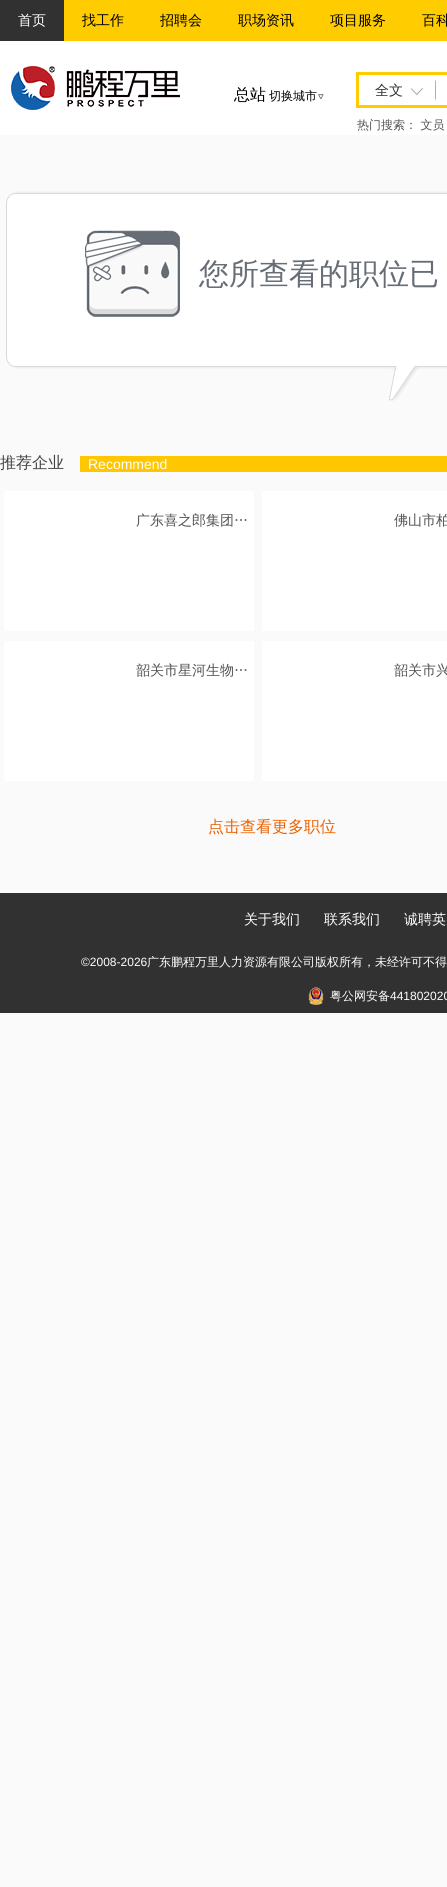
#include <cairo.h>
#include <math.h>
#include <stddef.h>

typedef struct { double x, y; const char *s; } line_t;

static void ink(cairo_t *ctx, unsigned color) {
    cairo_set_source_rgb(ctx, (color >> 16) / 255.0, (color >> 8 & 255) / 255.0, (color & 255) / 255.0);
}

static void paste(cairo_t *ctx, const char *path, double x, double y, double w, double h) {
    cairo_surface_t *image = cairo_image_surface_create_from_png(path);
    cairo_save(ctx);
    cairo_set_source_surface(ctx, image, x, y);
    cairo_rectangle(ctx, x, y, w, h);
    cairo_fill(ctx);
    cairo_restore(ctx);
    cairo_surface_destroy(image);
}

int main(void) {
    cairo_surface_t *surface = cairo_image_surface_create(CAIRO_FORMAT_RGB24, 447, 1887);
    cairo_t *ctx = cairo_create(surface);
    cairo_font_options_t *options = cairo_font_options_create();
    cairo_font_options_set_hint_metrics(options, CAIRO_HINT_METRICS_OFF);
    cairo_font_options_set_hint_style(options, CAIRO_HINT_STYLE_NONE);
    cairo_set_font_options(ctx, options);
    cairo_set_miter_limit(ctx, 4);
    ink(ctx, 0xFAFAFA);
    cairo_paint(ctx);
    ink(ctx, 0xFFCC00);
    cairo_rectangle(ctx, 64, 0, 383, 41);
    cairo_fill(ctx);
    ink(ctx, 0x313131);
    cairo_rectangle(ctx, 0, 0, 64, 41);
    cairo_fill(ctx);
    cairo_select_font_face(ctx, "WenQuanYi Zen Hei Medium", CAIRO_FONT_SLANT_NORMAL, CAIRO_FONT_WEIGHT_NORMAL);
    cairo_set_font_size(ctx, 14);
    ink(ctx, 0xFFFFFF);
    cairo_move_to(ctx, 18, 25);
    cairo_show_text(ctx, "首页");
    ink(ctx, 0x000000);
    {
        static const line_t items[] = {
            {82, 25, "找工作"},
            {160, 25, "招聘会"},
            {238, 25, "职场资讯"},
            {330, 25, "项目服务"},
            {422, 25, "百科"},
        };
        for (size_t i = 0; i < sizeof items / sizeof *items; i++) {
            cairo_move_to(ctx, items[i].x, items[i].y);
            cairo_show_text(ctx, items[i].s);
        }
    }
    ink(ctx, 0xFFFFFF);
    cairo_rectangle(ctx, 0, 41, 447, 94);
    cairo_fill(ctx);
    paste(ctx, "media/1.png", 11, 66, 169, 44);
    cairo_set_font_size(ctx, 16);
    ink(ctx, 0x000000);
    cairo_move_to(ctx, 234, 100);
    cairo_show_text(ctx, "总站");
    cairo_set_font_size(ctx, 12);
    cairo_move_to(ctx, 269, 100);
    cairo_show_text(ctx, "切换城市");
    paste(ctx, "media/2.png", 318, 94, 6, 5);
    cairo_rectangle(ctx, 357.5, 73.5, 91, 33);
    ink(ctx, 0xFFCC00);
    cairo_set_line_width(ctx, 3);
    cairo_stroke(ctx);
    paste(ctx, "media/3.png", 409, 88, 14, 7);
    cairo_set_font_size(ctx, 14);
    ink(ctx, 0x313131);
    cairo_move_to(ctx, 375, 95);
    cairo_show_text(ctx, "全文");
    paste(ctx, "media/4.png", 435, 80, 1, 20);
    cairo_set_font_size(ctx, 12);
    ink(ctx, 0x535353);
    cairo_move_to(ctx, 357, 129);
    cairo_show_text(ctx, "热门搜索： 文员");
    paste(ctx, "media/5.png", 6, 191, 441, 210);
    paste(ctx, "media/6.png", 85, 230, 95, 87);
    cairo_set_font_size(ctx, 30);
    ink(ctx, 0x666D75);
    cairo_move_to(ctx, 199, 284);
    cairo_show_text(ctx, "您所查看的职位已");
    cairo_set_font_size(ctx, 16);
    ink(ctx, 0x434343);
    cairo_move_to(ctx, 0, 468);
    cairo_show_text(ctx, "推荐企业");
    ink(ctx, 0xFFC602);
    cairo_rectangle(ctx, 80, 456, 367, 16);
    cairo_fill(ctx);
    cairo_select_font_face(ctx, "Liberation Sans", CAIRO_FONT_SLANT_NORMAL, CAIRO_FONT_WEIGHT_NORMAL);
    cairo_set_font_size(ctx, 14);
    ink(ctx, 0xFFFFFF);
    cairo_move_to(ctx, 88, 469);
    cairo_show_text(ctx, "Recommend");
    cairo_rectangle(ctx, 4, 491, 250, 140);
    cairo_fill(ctx);
    cairo_select_font_face(ctx, "WenQuanYi Zen Hei Medium", CAIRO_FONT_SLANT_NORMAL, CAIRO_FONT_WEIGHT_NORMAL);
    ink(ctx, 0x535353);
    cairo_move_to(ctx, 136, 525);
    cairo_show_text(ctx, "广东喜之郎集团…");
    ink(ctx, 0xFFFFFF);
    cairo_rectangle(ctx, 262, 491, 185, 140);
    cairo_fill(ctx);
    ink(ctx, 0x535353);
    cairo_move_to(ctx, 394, 525);
    cairo_show_text(ctx, "佛山市柏");
    ink(ctx, 0xFFFFFF);
    cairo_rectangle(ctx, 4, 641, 250, 140);
    cairo_fill(ctx);
    ink(ctx, 0x535353);
    cairo_move_to(ctx, 136, 675);
    cairo_show_text(ctx, "韶关市星河生物…");
    ink(ctx, 0xFFFFFF);
    cairo_rectangle(ctx, 262, 641, 185, 140);
    cairo_fill(ctx);
    ink(ctx, 0x535353);
    cairo_move_to(ctx, 394, 675);
    cairo_show_text(ctx, "韶关市兴");
    cairo_set_font_size(ctx, 16);
    ink(ctx, 0xEB6100);
    cairo_move_to(ctx, 208, 832);
    cairo_show_text(ctx, "点击查看更多职位");
    ink(ctx, 0x313131);
    cairo_rectangle(ctx, 0, 893, 447, 120);
    cairo_fill(ctx);
    cairo_set_font_size(ctx, 14);
    ink(ctx, 0xFFFFFF);
    {
        static const line_t items[] = {
            {244, 924, "关于我们"},
            {324, 924, "联系我们"},
            {404, 924, "诚聘英"},
        };
        for (size_t i = 0; i < sizeof items / sizeof *items; i++) {
            cairo_move_to(ctx, items[i].x, items[i].y);
            cairo_show_text(ctx, items[i].s);
        }
    }
    cairo_select_font_face(ctx, "Liberation Sans", CAIRO_FONT_SLANT_NORMAL, CAIRO_FONT_WEIGHT_NORMAL);
    cairo_set_font_size(ctx, 12);
    cairo_move_to(ctx, 81, 966);
    cairo_show_text(ctx, "©2008-2026");
    cairo_select_font_face(ctx, "WenQuanYi Zen Hei Medium", CAIRO_FONT_SLANT_NORMAL, CAIRO_FONT_WEIGHT_NORMAL);
    cairo_move_to(ctx, 147, 966);
    cairo_show_text(ctx, "广东鹏程万里人力资源有限公司版权所有，未经许可不得");
    paste(ctx, "media/7.png", 308, 987, 16, 18);
    cairo_move_to(ctx, 330, 1000);
    cairo_show_text(ctx, "粤公网安备");
    cairo_select_font_face(ctx, "Liberation Sans", CAIRO_FONT_SLANT_NORMAL, CAIRO_FONT_WEIGHT_NORMAL);
    cairo_move_to(ctx, 390, 1000);
    cairo_show_text(ctx, "441802020");
    cairo_surface_write_to_png(surface, "image.png");
    cairo_font_options_destroy(options);
    cairo_destroy(ctx);
    cairo_surface_destroy(surface);
    return 0;
}
